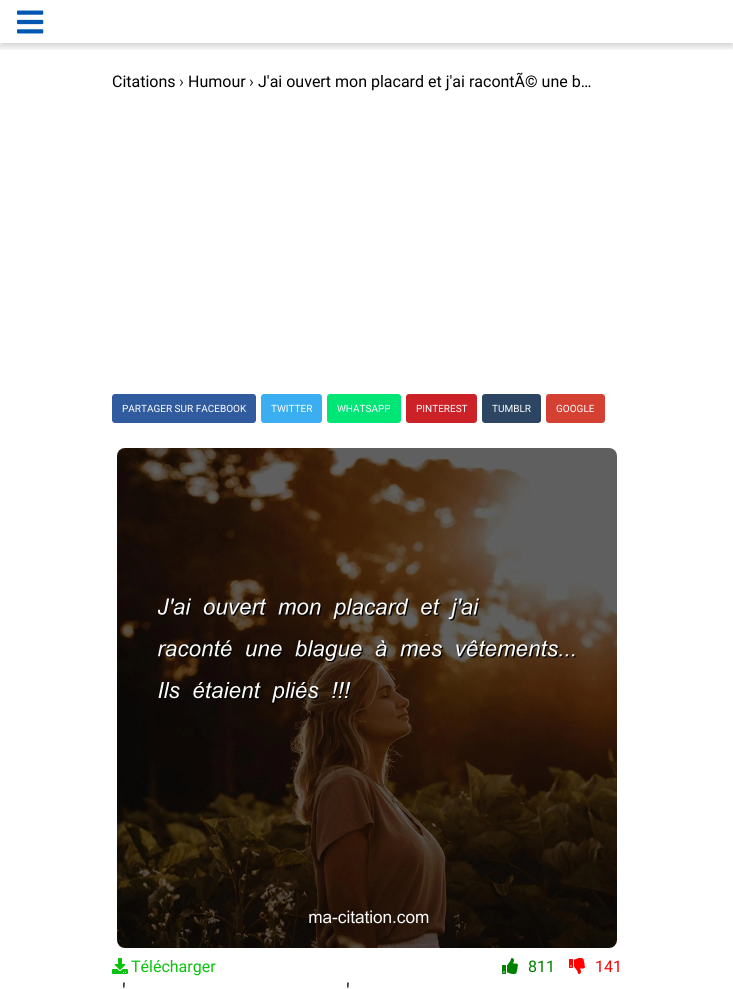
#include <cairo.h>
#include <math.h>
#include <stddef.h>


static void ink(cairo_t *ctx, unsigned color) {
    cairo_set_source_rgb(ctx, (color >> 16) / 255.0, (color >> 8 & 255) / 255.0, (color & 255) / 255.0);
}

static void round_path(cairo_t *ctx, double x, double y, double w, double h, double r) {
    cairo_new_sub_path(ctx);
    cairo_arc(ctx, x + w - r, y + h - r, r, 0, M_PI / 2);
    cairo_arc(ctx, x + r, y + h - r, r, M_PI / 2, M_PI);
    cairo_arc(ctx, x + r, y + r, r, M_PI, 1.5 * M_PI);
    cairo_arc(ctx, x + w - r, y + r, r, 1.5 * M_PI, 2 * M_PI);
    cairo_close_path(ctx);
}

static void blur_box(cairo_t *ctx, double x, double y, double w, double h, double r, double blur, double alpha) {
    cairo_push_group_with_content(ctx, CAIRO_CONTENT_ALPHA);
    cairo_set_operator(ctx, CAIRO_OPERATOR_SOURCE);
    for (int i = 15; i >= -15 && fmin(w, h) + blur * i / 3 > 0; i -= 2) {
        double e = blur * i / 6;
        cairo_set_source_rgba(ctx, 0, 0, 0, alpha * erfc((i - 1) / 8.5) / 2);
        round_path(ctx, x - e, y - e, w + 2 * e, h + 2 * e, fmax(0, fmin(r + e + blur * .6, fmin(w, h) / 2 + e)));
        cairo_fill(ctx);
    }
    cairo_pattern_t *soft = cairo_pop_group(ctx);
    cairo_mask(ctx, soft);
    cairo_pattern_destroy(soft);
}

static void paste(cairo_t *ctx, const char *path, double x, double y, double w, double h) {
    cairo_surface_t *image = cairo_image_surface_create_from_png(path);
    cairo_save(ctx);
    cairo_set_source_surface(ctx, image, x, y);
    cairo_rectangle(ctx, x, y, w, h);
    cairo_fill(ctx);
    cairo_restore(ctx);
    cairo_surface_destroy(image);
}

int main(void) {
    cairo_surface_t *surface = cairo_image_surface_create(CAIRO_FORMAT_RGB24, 733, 989);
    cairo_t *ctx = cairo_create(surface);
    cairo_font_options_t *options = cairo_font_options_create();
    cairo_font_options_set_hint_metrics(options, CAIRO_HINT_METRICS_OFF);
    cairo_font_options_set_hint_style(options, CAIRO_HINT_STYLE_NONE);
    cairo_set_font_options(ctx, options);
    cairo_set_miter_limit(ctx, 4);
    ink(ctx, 0xFFFFFF);
    cairo_paint(ctx);
    cairo_save(ctx);
    cairo_rectangle(ctx, 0, 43, 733, 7);
    cairo_clip(ctx);
    ink(ctx, 0x000000);
    blur_box(ctx, 0, 4, 733, 43, 0, 3, 0.16);
    cairo_restore(ctx);
    paste(ctx, "media/1.png", 17, 10, 27, 24);
    cairo_select_font_face(ctx, "Roboto", CAIRO_FONT_SLANT_NORMAL, CAIRO_FONT_WEIGHT_NORMAL);
    cairo_set_font_size(ctx, 16);
    ink(ctx, 0x000000);
    cairo_move_to(ctx, 112, 87);
    cairo_show_text(ctx, "Citations");
    ink(ctx, 0x212529);
    cairo_move_to(ctx, 179, 87);
    cairo_show_text(ctx, "›");
    ink(ctx, 0x000000);
    cairo_move_to(ctx, 188, 87);
    cairo_show_text(ctx, "Humour");
    ink(ctx, 0x212529);
    cairo_move_to(ctx, 249, 87);
    cairo_show_text(ctx, "›");
    ink(ctx, 0x000000);
    cairo_move_to(ctx, 258, 87);
    cairo_show_text(ctx, "J'ai ouvert mon placard et j'ai racontÃ© une b…");
    ink(ctx, 0x305B9E);
    round_path(ctx, 112, 394, 144, 29, 3);
    cairo_fill(ctx);
    cairo_set_font_size(ctx, 10);
    ink(ctx, 0xFFFFFF);
    cairo_move_to(ctx, 122, 412);
    cairo_show_text(ctx, "PARTAGER SUR FACEBOOK");
    ink(ctx, 0x3AAEF0);
    round_path(ctx, 261, 394, 61, 29, 3);
    cairo_fill(ctx);
    ink(ctx, 0xFFFFFF);
    cairo_move_to(ctx, 271, 412);
    cairo_show_text(ctx, "TWITTER");
    ink(ctx, 0x00E676);
    round_path(ctx, 327, 394, 74, 29, 3);
    cairo_fill(ctx);
    ink(ctx, 0xFFFFFF);
    cairo_move_to(ctx, 337, 412);
    cairo_show_text(ctx, "WHATSAPP");
    ink(ctx, 0xCC2127);
    round_path(ctx, 406, 394, 71, 29, 3);
    cairo_fill(ctx);
    ink(ctx, 0xFFFFFF);
    cairo_move_to(ctx, 416, 412);
    cairo_show_text(ctx, "PINTEREST");
    ink(ctx, 0x2B4563);
    round_path(ctx, 482, 394, 59, 29, 3);
    cairo_fill(ctx);
    ink(ctx, 0xFFFFFF);
    cairo_move_to(ctx, 492, 412);
    cairo_show_text(ctx, "TUMBLR");
    ink(ctx, 0xD44132);
    round_path(ctx, 546, 394, 59, 29, 3);
    cairo_fill(ctx);
    ink(ctx, 0xFFFFFF);
    cairo_move_to(ctx, 556, 412);
    cairo_show_text(ctx, "GOOGLE");
    paste(ctx, "media/2.png", 117, 448, 500, 500);
    paste(ctx, "media/3.png", 112, 958, 16, 16);
    cairo_set_font_size(ctx, 16);
    ink(ctx, 0x0AC30C);
    cairo_move_to(ctx, 131, 972);
    cairo_show_text(ctx, "Télécharger");
    paste(ctx, "media/4.png", 502, 958, 16, 16);
    ink(ctx, 0x008000);
    cairo_move_to(ctx, 528, 972);
    cairo_show_text(ctx, "811");
    paste(ctx, "media/5.png", 569, 958, 16, 16);
    ink(ctx, 0xFF0000);
    cairo_move_to(ctx, 595, 972);
    cairo_show_text(ctx, "141");
    cairo_select_font_face(ctx, "Roboto Condensed", CAIRO_FONT_SLANT_NORMAL, CAIRO_FONT_WEIGHT_NORMAL);
    cairo_set_font_size(ctx, 22);
    ink(ctx, 0x212529);
    cairo_move_to(ctx, 122, 999);
    cairo_show_text(ctx, "'");
    cairo_move_to(ctx, 346, 999);
    cairo_show_text(ctx, "'");
    cairo_surface_write_to_png(surface, "image.png");
    cairo_font_options_destroy(options);
    cairo_destroy(ctx);
    cairo_surface_destroy(surface);
    return 0;
}
